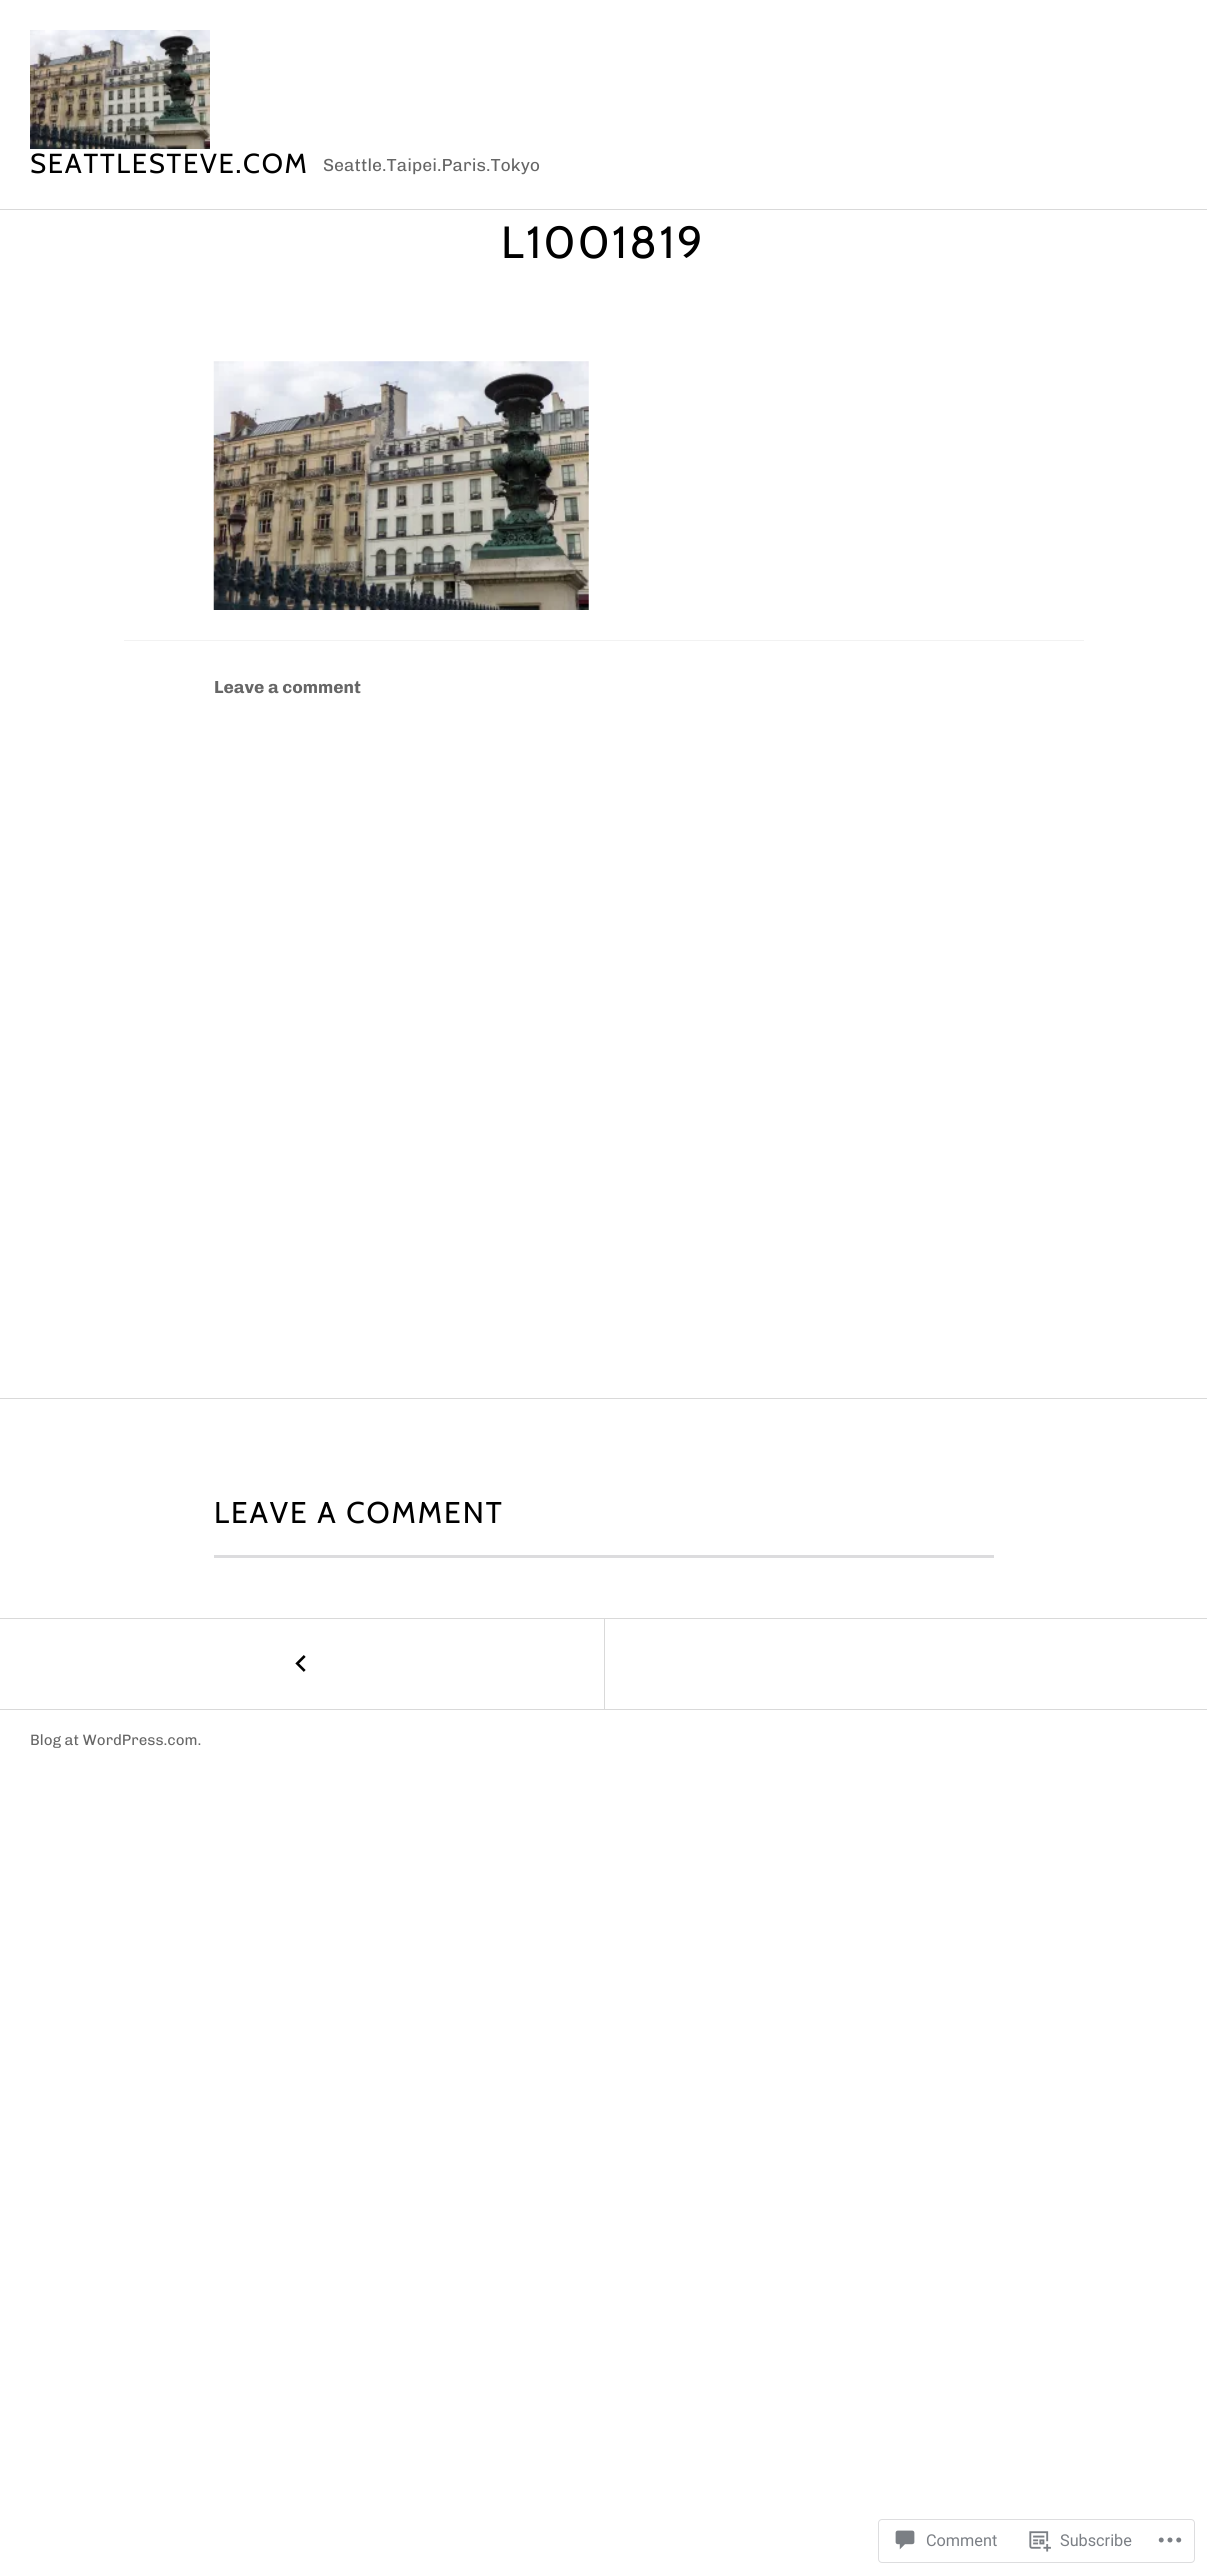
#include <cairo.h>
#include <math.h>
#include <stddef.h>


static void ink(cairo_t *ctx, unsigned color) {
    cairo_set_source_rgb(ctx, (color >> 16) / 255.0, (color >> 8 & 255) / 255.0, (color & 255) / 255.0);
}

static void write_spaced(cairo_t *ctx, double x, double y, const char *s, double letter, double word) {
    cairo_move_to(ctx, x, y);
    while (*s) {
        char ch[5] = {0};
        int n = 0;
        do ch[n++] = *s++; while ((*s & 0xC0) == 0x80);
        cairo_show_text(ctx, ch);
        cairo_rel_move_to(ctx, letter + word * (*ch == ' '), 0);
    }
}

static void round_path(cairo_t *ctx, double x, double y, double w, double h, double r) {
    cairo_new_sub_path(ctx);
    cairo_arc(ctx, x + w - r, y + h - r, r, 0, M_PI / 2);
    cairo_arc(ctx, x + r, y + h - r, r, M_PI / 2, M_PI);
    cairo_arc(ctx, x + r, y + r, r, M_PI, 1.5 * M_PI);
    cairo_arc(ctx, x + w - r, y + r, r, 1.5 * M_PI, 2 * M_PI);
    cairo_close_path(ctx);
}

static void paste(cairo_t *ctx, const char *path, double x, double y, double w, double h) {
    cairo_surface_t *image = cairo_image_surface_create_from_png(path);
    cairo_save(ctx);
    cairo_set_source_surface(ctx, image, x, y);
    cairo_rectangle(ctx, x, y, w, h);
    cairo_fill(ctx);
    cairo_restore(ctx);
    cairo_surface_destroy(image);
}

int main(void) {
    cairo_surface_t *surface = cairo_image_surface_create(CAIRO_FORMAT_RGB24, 1207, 2575);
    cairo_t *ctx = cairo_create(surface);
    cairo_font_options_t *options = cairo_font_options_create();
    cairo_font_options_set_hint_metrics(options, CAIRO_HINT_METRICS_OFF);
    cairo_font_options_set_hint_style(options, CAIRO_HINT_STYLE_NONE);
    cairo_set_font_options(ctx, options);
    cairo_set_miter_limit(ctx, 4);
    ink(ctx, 0xFFFFFF);
    cairo_paint(ctx);
    ink(ctx, 0xD9D9D9);
    cairo_rectangle(ctx, 0, 209, 1207, 1);
    cairo_fill(ctx);
    paste(ctx, "media/1.png", 30, 30, 180, 119);
    cairo_select_font_face(ctx, "Cabin", CAIRO_FONT_SLANT_NORMAL, CAIRO_FONT_WEIGHT_NORMAL);
    cairo_set_font_size(ctx, 27.5);
    ink(ctx, 0x000000);
    write_spaced(ctx, 30, 173, "SEATTLESTEVE.COM", 1.75, 0);
    cairo_select_font_face(ctx, "Chivo", CAIRO_FONT_SLANT_NORMAL, CAIRO_FONT_WEIGHT_NORMAL);
    cairo_set_font_size(ctx, 17.5);
    ink(ctx, 0x666666);
    cairo_move_to(ctx, 323, 171);
    cairo_show_text(ctx, "Seattle.Taipei.Paris.Tokyo");
    cairo_select_font_face(ctx, "Cabin", CAIRO_FONT_SLANT_NORMAL, CAIRO_FONT_WEIGHT_NORMAL);
    cairo_set_font_size(ctx, 45);
    ink(ctx, 0x000000);
    write_spaced(ctx, 501, 258, "L1001819", 2.75, 0);
    paste(ctx, "media/2.png", 213, 361, 376, 249);
    ink(ctx, 0xF2F2F2);
    cairo_rectangle(ctx, 124, 640, 960, 1);
    cairo_fill(ctx);
    cairo_select_font_face(ctx, "Chivo", CAIRO_FONT_SLANT_NORMAL, CAIRO_FONT_WEIGHT_BOLD);
    cairo_set_font_size(ctx, 17.5);
    ink(ctx, 0x666666);
    cairo_move_to(ctx, 214, 693);
    cairo_show_text(ctx, "Leave a comment");
    ink(ctx, 0xD9D9D9);
    cairo_rectangle(ctx, 0, 1398, 1207, 1);
    cairo_fill(ctx);
    cairo_select_font_face(ctx, "Cabin", CAIRO_FONT_SLANT_NORMAL, CAIRO_FONT_WEIGHT_NORMAL);
    cairo_set_font_size(ctx, 30);
    ink(ctx, 0x000000);
    write_spaced(ctx, 214, 1523, "LEAVE A COMMENT", 1.9, 0);
    ink(ctx, 0xDCDCDE);
    cairo_rectangle(ctx, 214, 1555, 780, 3);
    cairo_fill(ctx);
    ink(ctx, 0xD9D9D9);
    cairo_rectangle(ctx, 0, 1618, 1207, 1);
    cairo_fill(ctx);
    paste(ctx, "media/3.png", 295, 1655, 11, 17);
    cairo_rectangle(ctx, 604, 1619, 1, 90);
    cairo_fill(ctx);
    cairo_rectangle(ctx, 0, 1709, 1207, 1);
    cairo_fill(ctx);
    cairo_select_font_face(ctx, "Chivo", CAIRO_FONT_SLANT_NORMAL, CAIRO_FONT_WEIGHT_NORMAL);
    cairo_set_font_size(ctx, 15);
    ink(ctx, 0x666666);
    cairo_move_to(ctx, 30, 1745);
    cairo_show_text(ctx, "Blog at WordPress.com.");
    round_path(ctx, 878.5, 2519.5, 316, 43, 3.5);
    ink(ctx, 0xDDDDDF);
    cairo_set_line_width(ctx, 1);
    cairo_stroke(ctx);
    paste(ctx, "media/4.png", 895, 2530, 20, 20);
    cairo_select_font_face(ctx, "Roboto", CAIRO_FONT_SLANT_NORMAL, CAIRO_FONT_WEIGHT_NORMAL);
    cairo_set_font_size(ctx, 16.25);
    ink(ctx, 0x7B7F85);
    cairo_move_to(ctx, 926, 2546);
    cairo_show_text(ctx, "Comment");
    paste(ctx, "media/5.png", 1029, 2531, 22, 21);
    cairo_move_to(ctx, 1060, 2546);
    cairo_show_text(ctx, "Subscribe");
    paste(ctx, "media/6.png", 1158, 2537, 24, 6);
    cairo_surface_write_to_png(surface, "image.png");
    cairo_font_options_destroy(options);
    cairo_destroy(ctx);
    cairo_surface_destroy(surface);
    return 0;
}
